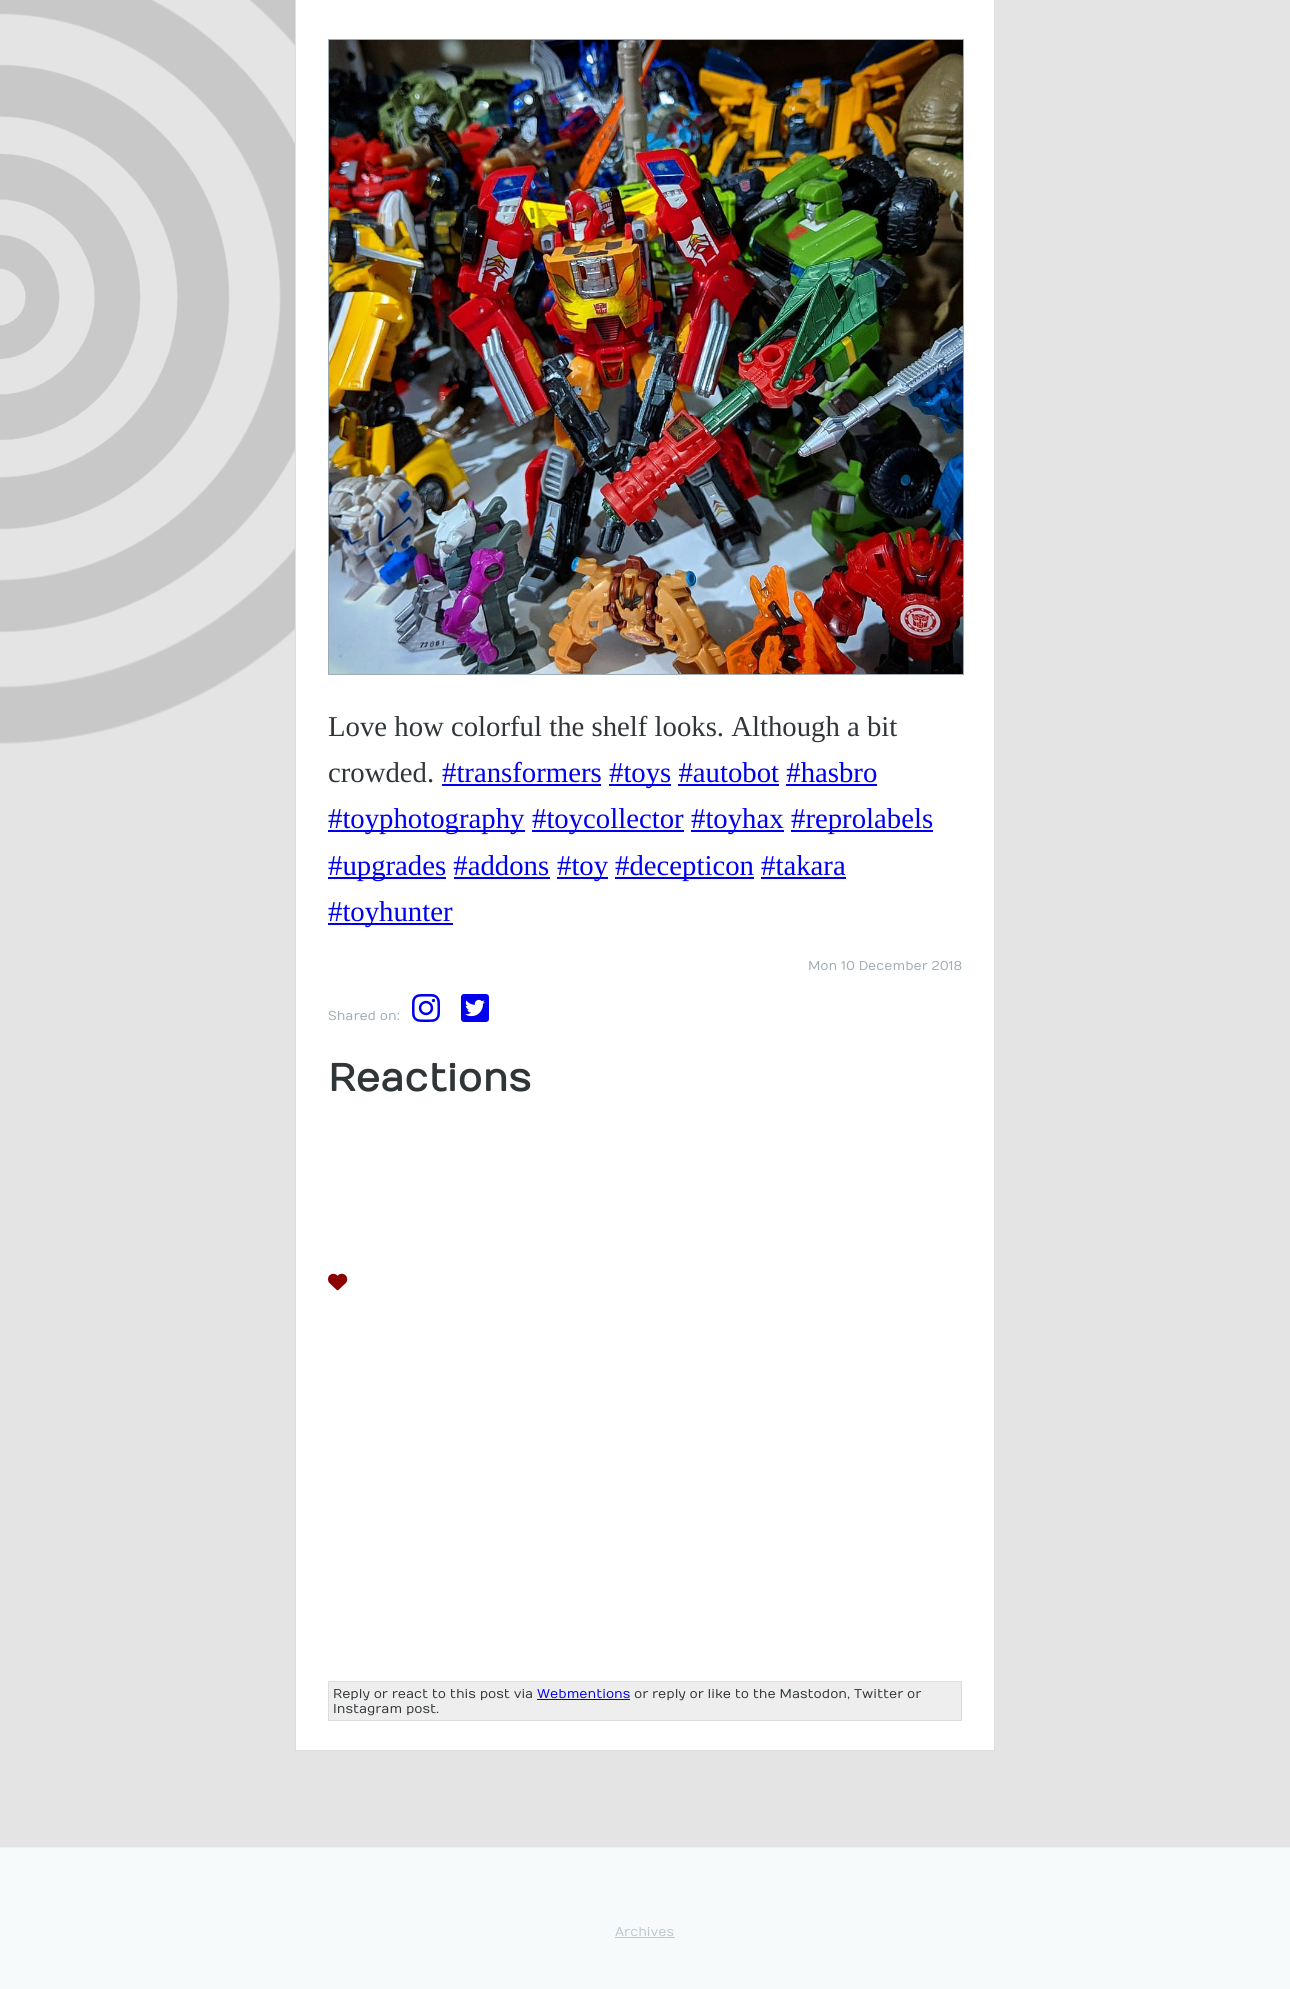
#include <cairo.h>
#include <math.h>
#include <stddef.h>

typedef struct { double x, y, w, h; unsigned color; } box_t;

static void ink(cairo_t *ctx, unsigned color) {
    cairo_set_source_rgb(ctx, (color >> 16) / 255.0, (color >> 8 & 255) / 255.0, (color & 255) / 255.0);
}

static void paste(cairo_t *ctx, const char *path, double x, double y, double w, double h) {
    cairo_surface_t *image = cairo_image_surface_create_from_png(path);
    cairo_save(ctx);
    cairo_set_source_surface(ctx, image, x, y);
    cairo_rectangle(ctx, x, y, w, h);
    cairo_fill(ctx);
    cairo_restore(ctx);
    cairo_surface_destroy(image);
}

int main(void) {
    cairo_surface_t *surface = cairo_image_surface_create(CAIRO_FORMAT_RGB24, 1290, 1989);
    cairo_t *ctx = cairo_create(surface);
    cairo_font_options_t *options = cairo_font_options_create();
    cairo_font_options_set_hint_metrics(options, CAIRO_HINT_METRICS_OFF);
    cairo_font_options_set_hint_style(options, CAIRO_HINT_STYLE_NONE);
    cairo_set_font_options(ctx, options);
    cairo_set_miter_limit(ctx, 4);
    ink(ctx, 0xE4E4E4);
    cairo_paint(ctx);
    paste(ctx, "media/1.png", 0, 0, 295, 744);
    ink(ctx, 0xFFFFFF);
    cairo_rectangle(ctx, 295.5, -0.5, 699, 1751);
    cairo_fill_preserve(ctx);
    ink(ctx, 0xDDDDDD);
    cairo_set_line_width(ctx, 1);
    cairo_stroke(ctx);
    cairo_rectangle(ctx, 328.5, 39.5, 635, 635);
    ink(ctx, 0x9EABB3);
    cairo_stroke(ctx);
    paste(ctx, "media/2.png", 329, 40, 634, 634);
    cairo_select_font_face(ctx, "Liberation Serif", CAIRO_FONT_SLANT_NORMAL, CAIRO_FONT_WEIGHT_NORMAL);
    cairo_set_font_size(ctx, 28.75);
    ink(ctx, 0x303538);
    cairo_move_to(ctx, 328, 736);
    cairo_show_text(ctx, "Love how colorful the shelf looks. Although a bit");
    cairo_move_to(ctx, 328, 782);
    cairo_show_text(ctx, "crowded.");
    ink(ctx, 0x0000EE);
    cairo_move_to(ctx, 442, 782);
    cairo_show_text(ctx, "#transformers");
    cairo_rectangle(ctx, 442, 784, 159, 2);
    cairo_fill(ctx);
    cairo_rectangle(ctx, 609, 784, 62, 2);
    cairo_fill(ctx);
    cairo_move_to(ctx, 609, 782);
    cairo_show_text(ctx, "#toys #autobot #hasbro");
    {
        static const box_t items[] = {
            {678, 784, 101, 2, 0x0000EE},
            {786, 784, 91, 2, 0x0000EE},
            {328, 830, 197, 2, 0x0000EE},
        };
        for (size_t i = 0; i < sizeof items / sizeof *items; i++) {
            ink(ctx, items[i].color);
            cairo_rectangle(ctx, items[i].x, items[i].y, items[i].w, items[i].h);
            cairo_fill(ctx);
        }
    }
    cairo_move_to(ctx, 328, 828);
    cairo_show_text(ctx, "#toyphotography");
    cairo_rectangle(ctx, 532, 830, 152, 2);
    cairo_fill(ctx);
    cairo_move_to(ctx, 532, 828);
    cairo_show_text(ctx, "#toycollector");
    cairo_rectangle(ctx, 691, 830, 93, 2);
    cairo_fill(ctx);
    cairo_move_to(ctx, 691, 828);
    cairo_show_text(ctx, "#toyhax");
    cairo_rectangle(ctx, 791, 830, 142, 2);
    cairo_fill(ctx);
    cairo_move_to(ctx, 791, 828);
    cairo_show_text(ctx, "#reprolabels");
    cairo_rectangle(ctx, 328, 877, 118, 2);
    cairo_fill(ctx);
    cairo_move_to(ctx, 328, 875);
    cairo_show_text(ctx, "#upgrades #addons");
    cairo_rectangle(ctx, 557, 877, 51, 2);
    cairo_fill(ctx);
    cairo_move_to(ctx, 557, 875);
    cairo_show_text(ctx, "#toy");
    cairo_rectangle(ctx, 615, 877, 139, 2);
    cairo_fill(ctx);
    cairo_move_to(ctx, 615, 875);
    cairo_show_text(ctx, "#decepticon #takara");
    {
        static const box_t items[] = {
            {454, 877, 96, 2, 0x0000EE},
            {761, 877, 85, 2, 0x0000EE},
            {328, 923, 125, 2, 0x0000EE},
        };
        for (size_t i = 0; i < sizeof items / sizeof *items; i++) {
            ink(ctx, items[i].color);
            cairo_rectangle(ctx, items[i].x, items[i].y, items[i].w, items[i].h);
            cairo_fill(ctx);
        }
    }
    cairo_move_to(ctx, 328, 921);
    cairo_show_text(ctx, "#toyhunter");
    cairo_select_font_face(ctx, "Numans", CAIRO_FONT_SLANT_NORMAL, CAIRO_FONT_WEIGHT_NORMAL);
    cairo_set_font_size(ctx, 12.8);
    ink(ctx, 0x9EABB3);
    cairo_move_to(ctx, 808, 970);
    cairo_show_text(ctx, "Mon 10 December 2018");
    cairo_move_to(ctx, 328, 1020);
    cairo_show_text(ctx, "Shared on:");
    paste(ctx, "media/3.png", 412, 994, 28, 28);
    paste(ctx, "media/4.png", 461, 994, 28, 28);
    cairo_select_font_face(ctx, "Numans", CAIRO_FONT_SLANT_NORMAL, CAIRO_FONT_WEIGHT_BOLD);
    cairo_set_font_size(ctx, 38.5);
    ink(ctx, 0x303538);
    cairo_move_to(ctx, 328, 1091);
    cairo_show_text(ctx, "Reactions");
    paste(ctx, "media/5.png", 328, 1273, 20, 18);
    ink(ctx, 0xEEEEEE);
    cairo_rectangle(ctx, 328.5, 1681.5, 633, 39);
    cairo_fill_preserve(ctx);
    ink(ctx, 0xDDDDDD);
    cairo_stroke(ctx);
    cairo_select_font_face(ctx, "Numans", CAIRO_FONT_SLANT_NORMAL, CAIRO_FONT_WEIGHT_NORMAL);
    cairo_set_font_size(ctx, 12.8);
    ink(ctx, 0x303538);
    cairo_move_to(ctx, 333, 1698);
    cairo_show_text(ctx, "Reply or react to this post via");
    ink(ctx, 0x0000EE);
    cairo_move_to(ctx, 537, 1698);
    cairo_show_text(ctx, "Webmentions");
    cairo_rectangle(ctx, 537, 1699, 93, 1);
    cairo_fill(ctx);
    ink(ctx, 0x303538);
    cairo_move_to(ctx, 634, 1698);
    cairo_show_text(ctx, "or reply or like to the Mastodon, Twitter or");
    cairo_move_to(ctx, 333, 1713);
    cairo_show_text(ctx, "Instagram post.");
    ink(ctx, 0xF7FAFB);
    cairo_rectangle(ctx, 0, 1848, 1290, 141);
    cairo_fill(ctx);
    ink(ctx, 0xEBF2F6);
    cairo_rectangle(ctx, 0, 1847, 1290, 1);
    cairo_fill(ctx);
    ink(ctx, 0xBBC7CC);
    cairo_move_to(ctx, 615, 1936);
    cairo_show_text(ctx, "Archives");
    cairo_rectangle(ctx, 615, 1937, 60, 1);
    cairo_fill(ctx);
    cairo_surface_write_to_png(surface, "image.png");
    cairo_font_options_destroy(options);
    cairo_destroy(ctx);
    cairo_surface_destroy(surface);
    return 0;
}
